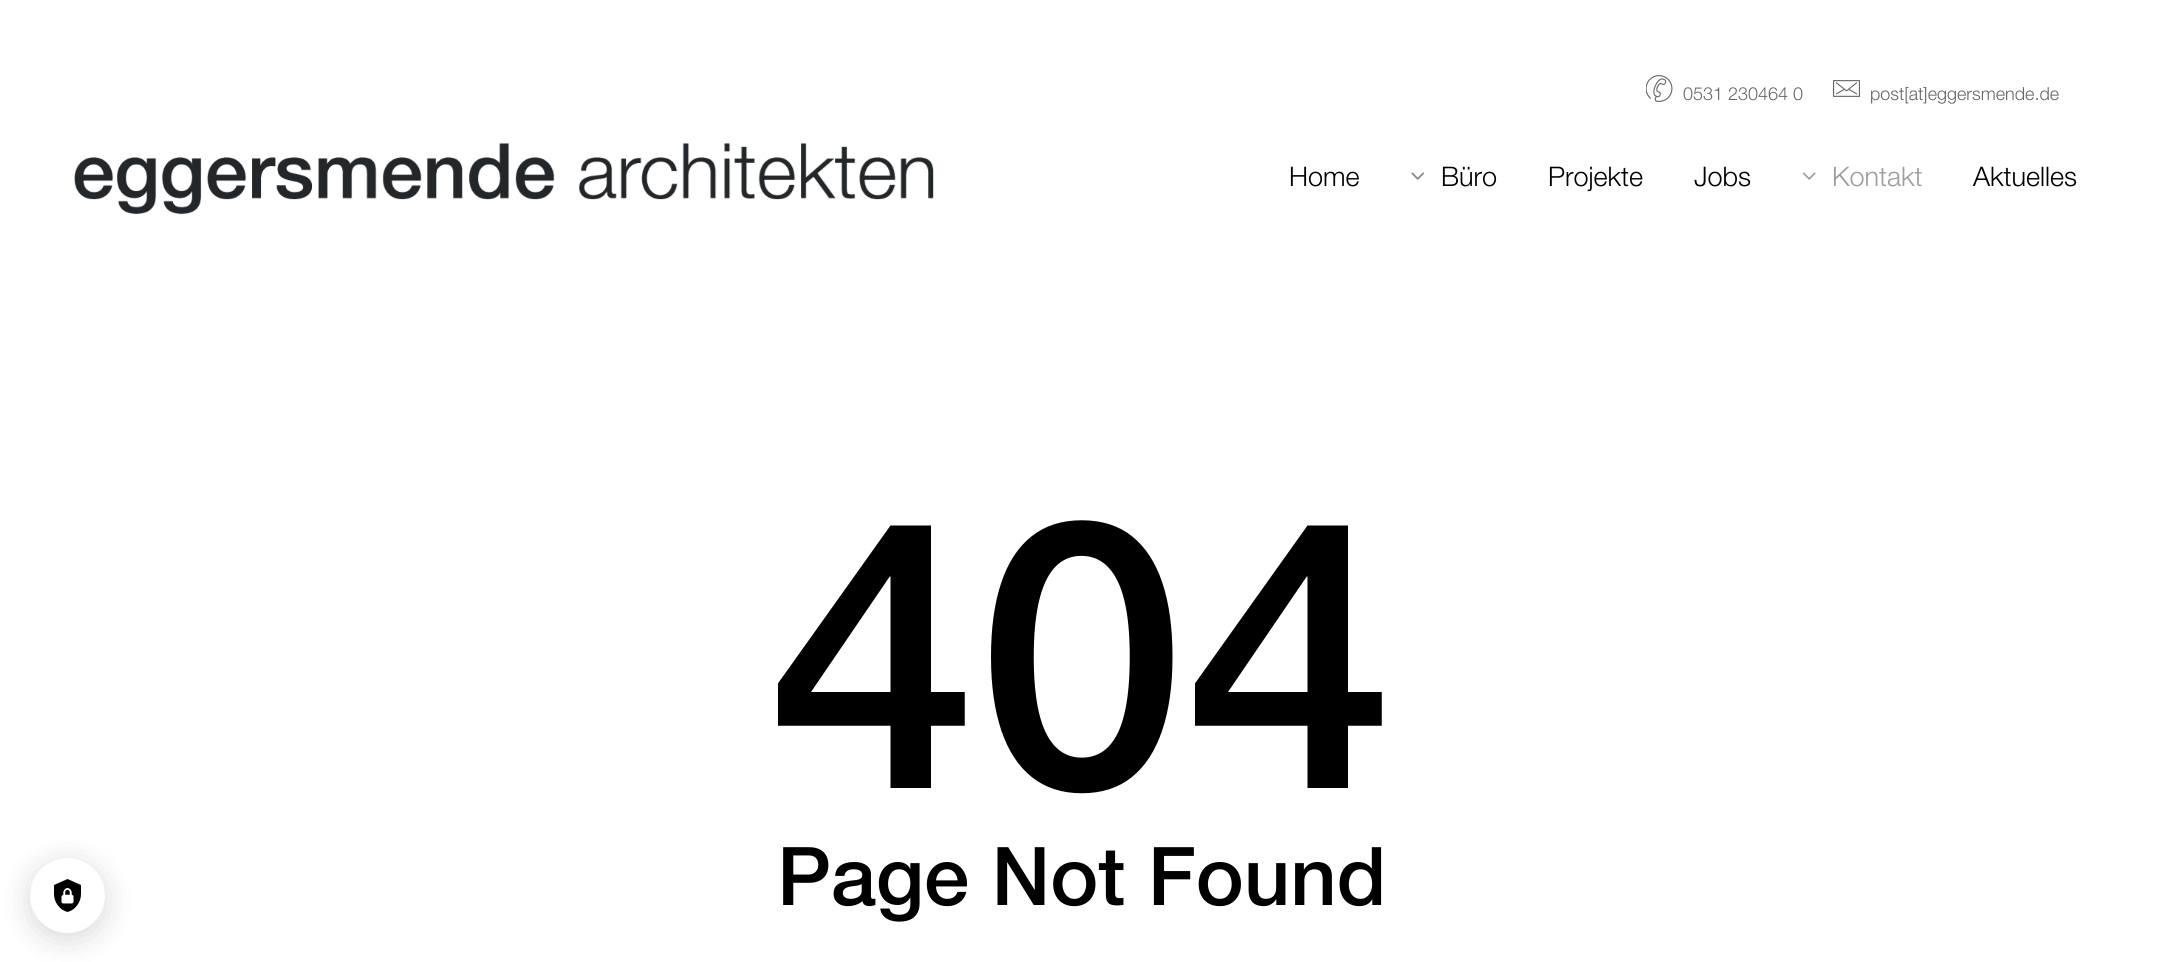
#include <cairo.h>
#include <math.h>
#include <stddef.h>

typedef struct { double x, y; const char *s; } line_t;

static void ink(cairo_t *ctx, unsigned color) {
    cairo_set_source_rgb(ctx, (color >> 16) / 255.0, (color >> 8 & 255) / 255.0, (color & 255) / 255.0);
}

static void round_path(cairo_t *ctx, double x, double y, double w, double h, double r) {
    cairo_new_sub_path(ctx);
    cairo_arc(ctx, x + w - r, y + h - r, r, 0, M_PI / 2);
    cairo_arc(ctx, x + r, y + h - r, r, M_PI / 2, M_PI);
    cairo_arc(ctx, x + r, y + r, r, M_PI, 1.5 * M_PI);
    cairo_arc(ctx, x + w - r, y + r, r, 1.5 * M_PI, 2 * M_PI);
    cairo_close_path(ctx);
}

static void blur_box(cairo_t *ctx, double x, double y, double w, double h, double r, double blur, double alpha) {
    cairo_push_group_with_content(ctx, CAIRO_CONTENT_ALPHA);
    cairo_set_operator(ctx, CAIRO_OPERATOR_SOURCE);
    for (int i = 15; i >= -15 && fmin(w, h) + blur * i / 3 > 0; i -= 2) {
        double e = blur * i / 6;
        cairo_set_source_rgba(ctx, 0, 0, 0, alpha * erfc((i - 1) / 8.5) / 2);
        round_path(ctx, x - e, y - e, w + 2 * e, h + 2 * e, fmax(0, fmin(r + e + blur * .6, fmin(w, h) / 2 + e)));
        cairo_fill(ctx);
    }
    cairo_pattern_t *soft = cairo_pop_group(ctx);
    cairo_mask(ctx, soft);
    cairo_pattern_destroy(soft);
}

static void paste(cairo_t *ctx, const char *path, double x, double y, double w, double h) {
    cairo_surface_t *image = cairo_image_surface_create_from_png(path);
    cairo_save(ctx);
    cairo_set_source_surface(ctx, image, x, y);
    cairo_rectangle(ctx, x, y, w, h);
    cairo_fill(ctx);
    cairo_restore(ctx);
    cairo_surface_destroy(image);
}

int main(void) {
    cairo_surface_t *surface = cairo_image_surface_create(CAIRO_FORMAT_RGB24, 2163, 962);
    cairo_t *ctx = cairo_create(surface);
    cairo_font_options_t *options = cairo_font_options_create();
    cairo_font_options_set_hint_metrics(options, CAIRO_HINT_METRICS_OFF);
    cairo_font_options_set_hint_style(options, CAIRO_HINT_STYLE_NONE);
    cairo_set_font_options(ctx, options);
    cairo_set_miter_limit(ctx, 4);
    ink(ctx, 0xFFFFFF);
    cairo_paint(ctx);
    ink(ctx, 0x000000);
    blur_box(ctx, 30, 864, 75, 75, 37.5, 15, 0.15);
    ink(ctx, 0xFFFFFF);
    cairo_arc(ctx, 67.5, 895.5, 37.5, 0, 2 * M_PI);
    cairo_fill(ctx);
    paste(ctx, "media/1.png", 54, 879, 27, 33);
    paste(ctx, "media/2.png", 1646, 75, 27, 27);
    cairo_select_font_face(ctx, "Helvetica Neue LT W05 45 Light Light", CAIRO_FONT_SLANT_NORMAL, CAIRO_FONT_WEIGHT_NORMAL);
    cairo_set_font_size(ctx, 18);
    ink(ctx, 0x666666);
    cairo_move_to(ctx, 1683, 100);
    cairo_show_text(ctx, "0531 230464 0");
    paste(ctx, "media/3.png", 1833, 80, 27, 17);
    cairo_move_to(ctx, 1870, 100);
    cairo_show_text(ctx, "post[at]eggersmende.de");
    paste(ctx, "media/4.png", 74, 143, 860, 72);
    cairo_set_font_size(ctx, 27);
    ink(ctx, 0x000000);
    cairo_move_to(ctx, 1289, 186);
    cairo_show_text(ctx, "Home");
    paste(ctx, "media/5.png", 1411, 172, 14, 8);
    {
        static const line_t items[] = {
            {1441, 186, "Büro"},
            {1548, 186, "Projekte"},
            {1694, 186, "Jobs"},
        };
        for (size_t i = 0; i < sizeof items / sizeof *items; i++) {
            cairo_move_to(ctx, items[i].x, items[i].y);
            cairo_show_text(ctx, items[i].s);
        }
    }
    paste(ctx, "media/6.png", 1802, 172, 14, 8);
    ink(ctx, 0x9E9E9E);
    cairo_move_to(ctx, 1832, 186);
    cairo_show_text(ctx, "Kontakt");
    ink(ctx, 0x000000);
    cairo_move_to(ctx, 1973, 186);
    cairo_show_text(ctx, "Aktuelles");
    cairo_select_font_face(ctx, "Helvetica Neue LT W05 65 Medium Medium", CAIRO_FONT_SLANT_NORMAL, CAIRO_FONT_WEIGHT_NORMAL);
    cairo_set_font_size(ctx, 375);
    cairo_move_to(ctx, 769, 788);
    cairo_show_text(ctx, "404");
    cairo_set_font_size(ctx, 81);
    cairo_move_to(ctx, 777, 905);
    cairo_show_text(ctx, "Page Not Found");
    cairo_surface_write_to_png(surface, "image.png");
    cairo_font_options_destroy(options);
    cairo_destroy(ctx);
    cairo_surface_destroy(surface);
    return 0;
}
